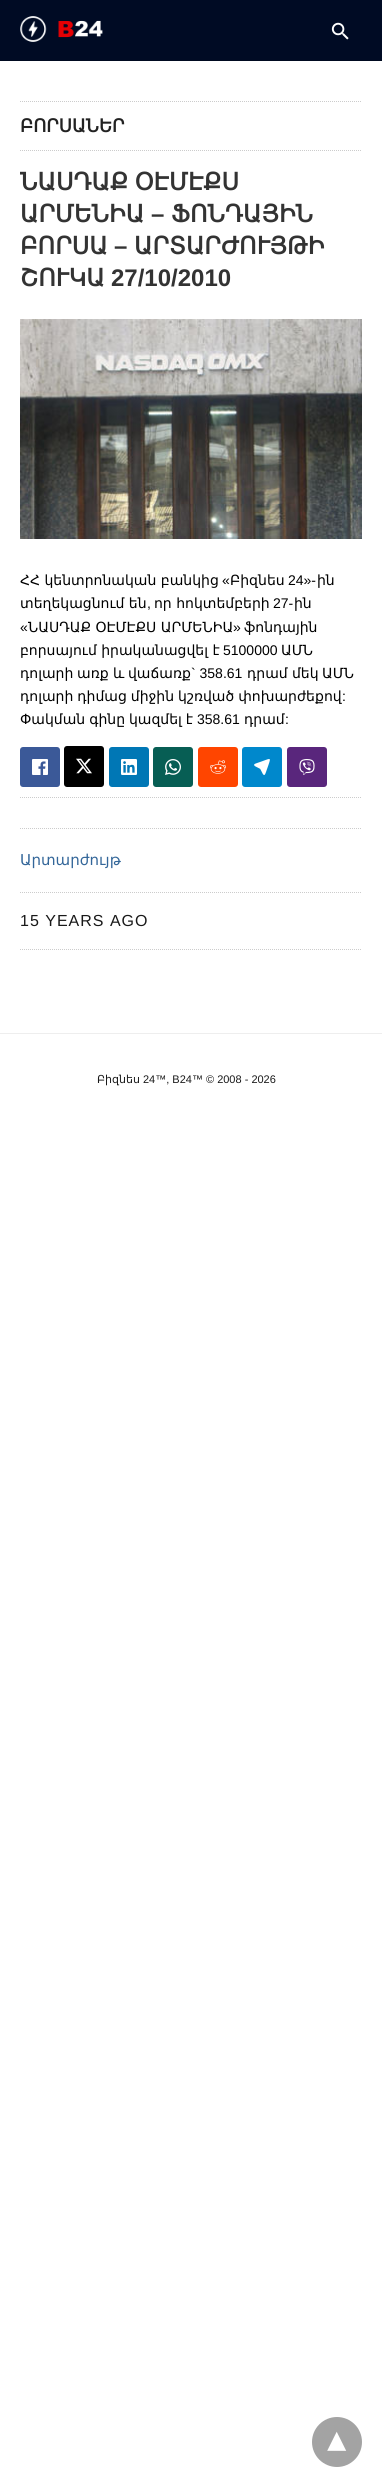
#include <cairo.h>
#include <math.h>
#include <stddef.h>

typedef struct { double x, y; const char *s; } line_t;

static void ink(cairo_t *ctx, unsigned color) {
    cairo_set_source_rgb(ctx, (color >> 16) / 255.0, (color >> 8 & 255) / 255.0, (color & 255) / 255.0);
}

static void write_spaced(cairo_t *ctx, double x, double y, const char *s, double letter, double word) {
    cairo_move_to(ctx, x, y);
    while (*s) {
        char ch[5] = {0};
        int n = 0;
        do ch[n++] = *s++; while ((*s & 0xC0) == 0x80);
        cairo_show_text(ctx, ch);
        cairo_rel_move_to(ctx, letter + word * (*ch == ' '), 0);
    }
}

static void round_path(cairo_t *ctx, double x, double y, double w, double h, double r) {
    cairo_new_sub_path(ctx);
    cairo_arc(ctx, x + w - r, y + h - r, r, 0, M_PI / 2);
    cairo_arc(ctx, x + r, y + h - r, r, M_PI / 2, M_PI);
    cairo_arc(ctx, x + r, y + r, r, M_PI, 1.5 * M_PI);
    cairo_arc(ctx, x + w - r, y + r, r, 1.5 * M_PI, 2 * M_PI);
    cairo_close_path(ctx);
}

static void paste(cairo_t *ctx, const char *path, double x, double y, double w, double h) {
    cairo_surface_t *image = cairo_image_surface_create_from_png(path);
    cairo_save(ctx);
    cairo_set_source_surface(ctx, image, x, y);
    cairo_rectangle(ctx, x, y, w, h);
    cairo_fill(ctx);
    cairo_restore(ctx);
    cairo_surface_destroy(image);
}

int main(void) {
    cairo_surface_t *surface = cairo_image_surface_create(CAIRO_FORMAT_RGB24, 382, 2487);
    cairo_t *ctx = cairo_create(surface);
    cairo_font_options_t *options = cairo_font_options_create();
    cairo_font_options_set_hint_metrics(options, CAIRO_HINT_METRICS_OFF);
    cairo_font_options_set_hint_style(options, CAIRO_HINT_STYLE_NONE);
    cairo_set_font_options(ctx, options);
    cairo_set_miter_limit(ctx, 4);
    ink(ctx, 0xFFFFFF);
    cairo_paint(ctx);
    ink(ctx, 0x000B24);
    cairo_rectangle(ctx, 0, 0, 382, 60);
    cairo_fill(ctx);
    ink(ctx, 0x000A20);
    cairo_rectangle(ctx, 0, 60, 382, 1);
    cairo_fill(ctx);
    paste(ctx, "media/1.png", 20, 16, 83, 26);
    paste(ctx, "media/2.png", 331, 22, 18, 18);
    cairo_new_path(ctx);
    cairo_move_to(ctx, 20, 101.5);
    cairo_line_to(ctx, 362, 101.5);
    ink(ctx, 0xCCCCCC);
    cairo_set_line_width(ctx, 1);
    cairo_set_dash(ctx, (double[]){1, 1}, 2, 0);
    cairo_stroke(ctx);
    cairo_new_path(ctx);
    cairo_move_to(ctx, 20, 150.5);
    cairo_line_to(ctx, 362, 150.5);
    cairo_stroke(ctx);
    cairo_select_font_face(ctx, "DejaVu Sans", CAIRO_FONT_SLANT_NORMAL, CAIRO_FONT_WEIGHT_BOLD);
    cairo_set_font_size(ctx, 18);
    ink(ctx, 0x222222);
    cairo_move_to(ctx, 20, 132);
    cairo_show_text(ctx, "ԲՈՐՍԱՆԵՐ");
    cairo_set_font_size(ctx, 24);
    ink(ctx, 0x333333);
    write_spaced(ctx, 20, 190, "ՆԱՍԴԱՔ ՕԷՄԷՔՍ", 0, -1);
    cairo_move_to(ctx, 20, 222);
    cairo_show_text(ctx, "ԱՐՄԵՆԻԱ");
    cairo_select_font_face(ctx, "Liberation Sans", CAIRO_FONT_SLANT_NORMAL, CAIRO_FONT_WEIGHT_BOLD);
    cairo_move_to(ctx, 151, 222);
    cairo_show_text(ctx, "–");
    cairo_select_font_face(ctx, "DejaVu Sans", CAIRO_FONT_SLANT_NORMAL, CAIRO_FONT_WEIGHT_BOLD);
    cairo_move_to(ctx, 171, 222);
    cairo_show_text(ctx, "ՖՈՆԴԱՅԻՆ");
    cairo_move_to(ctx, 20, 254);
    cairo_show_text(ctx, "ԲՈՐՍԱ");
    cairo_select_font_face(ctx, "Liberation Sans", CAIRO_FONT_SLANT_NORMAL, CAIRO_FONT_WEIGHT_BOLD);
    cairo_move_to(ctx, 114, 254);
    cairo_show_text(ctx, "–");
    cairo_select_font_face(ctx, "DejaVu Sans", CAIRO_FONT_SLANT_NORMAL, CAIRO_FONT_WEIGHT_BOLD);
    cairo_move_to(ctx, 134, 254);
    cairo_show_text(ctx, "ԱՐՏԱՐԺՈՒՅԹԻ");
    cairo_move_to(ctx, 20, 286);
    cairo_show_text(ctx, "ՇՈՒԿԱ");
    cairo_select_font_face(ctx, "Liberation Sans", CAIRO_FONT_SLANT_NORMAL, CAIRO_FONT_WEIGHT_BOLD);
    cairo_move_to(ctx, 111, 286);
    cairo_show_text(ctx, "27/10/2010");
    paste(ctx, "media/3.png", 20, 319, 342, 220);
    cairo_select_font_face(ctx, "DejaVu Sans", CAIRO_FONT_SLANT_NORMAL, CAIRO_FONT_WEIGHT_NORMAL);
    cairo_set_font_size(ctx, 14);
    ink(ctx, 0x000000);
    cairo_move_to(ctx, 20, 585);
    cairo_show_text(ctx, "ՀՀ կենտրոնական բանկից");
    cairo_select_font_face(ctx, "Liberation Sans", CAIRO_FONT_SLANT_NORMAL, CAIRO_FONT_WEIGHT_NORMAL);
    cairo_move_to(ctx, 222, 585);
    cairo_show_text(ctx, "«");
    cairo_select_font_face(ctx, "DejaVu Sans", CAIRO_FONT_SLANT_NORMAL, CAIRO_FONT_WEIGHT_NORMAL);
    cairo_move_to(ctx, 230, 585);
    cairo_show_text(ctx, "Բիզնես");
    cairo_select_font_face(ctx, "Liberation Sans", CAIRO_FONT_SLANT_NORMAL, CAIRO_FONT_WEIGHT_NORMAL);
    cairo_move_to(ctx, 288, 585);
    cairo_show_text(ctx, "24»-");
    cairo_select_font_face(ctx, "DejaVu Sans", CAIRO_FONT_SLANT_NORMAL, CAIRO_FONT_WEIGHT_NORMAL);
    cairo_move_to(ctx, 317, 585);
    cairo_show_text(ctx, "ին");
    cairo_move_to(ctx, 20, 608);
    cairo_show_text(ctx, "տեղեկացնում են");
    cairo_select_font_face(ctx, "Liberation Sans", CAIRO_FONT_SLANT_NORMAL, CAIRO_FONT_WEIGHT_NORMAL);
    cairo_move_to(ctx, 147, 608);
    cairo_show_text(ctx, ",");
    cairo_select_font_face(ctx, "DejaVu Sans", CAIRO_FONT_SLANT_NORMAL, CAIRO_FONT_WEIGHT_NORMAL);
    cairo_move_to(ctx, 154, 608);
    cairo_show_text(ctx, "որ հոկտեմբերի");
    cairo_select_font_face(ctx, "Liberation Sans", CAIRO_FONT_SLANT_NORMAL, CAIRO_FONT_WEIGHT_NORMAL);
    cairo_move_to(ctx, 273, 608);
    cairo_show_text(ctx, "27-");
    cairo_select_font_face(ctx, "DejaVu Sans", CAIRO_FONT_SLANT_NORMAL, CAIRO_FONT_WEIGHT_NORMAL);
    cairo_move_to(ctx, 294, 608);
    cairo_show_text(ctx, "ին");
    cairo_select_font_face(ctx, "Liberation Sans", CAIRO_FONT_SLANT_NORMAL, CAIRO_FONT_WEIGHT_NORMAL);
    cairo_move_to(ctx, 20, 632);
    cairo_show_text(ctx, "«");
    cairo_select_font_face(ctx, "DejaVu Sans", CAIRO_FONT_SLANT_NORMAL, CAIRO_FONT_WEIGHT_NORMAL);
    cairo_move_to(ctx, 28, 632);
    cairo_show_text(ctx, "ՆԱՍԴԱՔ ՕԷՄԷՔՍ ԱՐՄԵՆԻԱ");
    cairo_select_font_face(ctx, "Liberation Sans", CAIRO_FONT_SLANT_NORMAL, CAIRO_FONT_WEIGHT_NORMAL);
    cairo_move_to(ctx, 233, 632);
    cairo_show_text(ctx, "»");
    cairo_select_font_face(ctx, "DejaVu Sans", CAIRO_FONT_SLANT_NORMAL, CAIRO_FONT_WEIGHT_NORMAL);
    cairo_move_to(ctx, 244, 632);
    cairo_show_text(ctx, "ֆոնդային");
    cairo_move_to(ctx, 20, 655);
    cairo_show_text(ctx, "բորսայում իրականացվել է");
    cairo_select_font_face(ctx, "Liberation Sans", CAIRO_FONT_SLANT_NORMAL, CAIRO_FONT_WEIGHT_NORMAL);
    cairo_move_to(ctx, 223, 655);
    cairo_show_text(ctx, "5100000");
    cairo_select_font_face(ctx, "DejaVu Sans", CAIRO_FONT_SLANT_NORMAL, CAIRO_FONT_WEIGHT_NORMAL);
    {
        static const line_t items[] = {
            {281, 655, "ԱՄՆ"},
            {20, 678, "դոլարի"},
            {77, 678, "առք"},
            {113, 678, "և"},
            {128, 678, "վաճառք"},
        };
        for (size_t i = 0; i < sizeof items / sizeof *items; i++) {
            cairo_move_to(ctx, items[i].x, items[i].y);
            cairo_show_text(ctx, items[i].s);
        }
    }
    cairo_select_font_face(ctx, "Liberation Sans", CAIRO_FONT_SLANT_NORMAL, CAIRO_FONT_WEIGHT_NORMAL);
    cairo_move_to(ctx, 191, 678);
    cairo_show_text(ctx, "` 358.61");
    cairo_select_font_face(ctx, "DejaVu Sans", CAIRO_FONT_SLANT_NORMAL, CAIRO_FONT_WEIGHT_NORMAL);
    {
        static const line_t items[] = {
            {247, 678, "դրամ"},
            {292, 678, "մեկ"},
            {322, 678, "ԱՄՆ"},
        };
        for (size_t i = 0; i < sizeof items / sizeof *items; i++) {
            cairo_move_to(ctx, items[i].x, items[i].y);
            cairo_show_text(ctx, items[i].s);
        }
    }
    write_spaced(ctx, 20, 701, "դոլարի դիմաց միջին կշռված փոխարժեքով", 0, -0.5);
    cairo_select_font_face(ctx, "Liberation Sans", CAIRO_FONT_SLANT_NORMAL, CAIRO_FONT_WEIGHT_NORMAL);
    cairo_move_to(ctx, 342, 701);
    cairo_show_text(ctx, ":");
    cairo_select_font_face(ctx, "DejaVu Sans", CAIRO_FONT_SLANT_NORMAL, CAIRO_FONT_WEIGHT_NORMAL);
    write_spaced(ctx, 20, 724, "Փակման գինը կազմել է", 0, -0.5);
    cairo_select_font_face(ctx, "Liberation Sans", CAIRO_FONT_SLANT_NORMAL, CAIRO_FONT_WEIGHT_NORMAL);
    cairo_move_to(ctx, 197, 724);
    cairo_show_text(ctx, "358.61");
    cairo_select_font_face(ctx, "DejaVu Sans", CAIRO_FONT_SLANT_NORMAL, CAIRO_FONT_WEIGHT_NORMAL);
    cairo_move_to(ctx, 244, 724);
    cairo_show_text(ctx, "դրամ");
    cairo_select_font_face(ctx, "Liberation Sans", CAIRO_FONT_SLANT_NORMAL, CAIRO_FONT_WEIGHT_NORMAL);
    cairo_move_to(ctx, 285, 724);
    cairo_show_text(ctx, ":");
    cairo_new_path(ctx);
    cairo_move_to(ctx, 20, 828.5);
    cairo_line_to(ctx, 362, 828.5);
    ink(ctx, 0xCCCCCC);
    cairo_stroke(ctx);
    cairo_new_path(ctx);
    cairo_move_to(ctx, 20, 797.5);
    cairo_line_to(ctx, 362, 797.5);
    cairo_stroke(ctx);
    ink(ctx, 0x3B5998);
    round_path(ctx, 20, 747, 40, 40, 3);
    cairo_fill(ctx);
    paste(ctx, "media/4.png", 32, 759, 16, 16);
    ink(ctx, 0x000000);
    round_path(ctx, 64, 746, 40, 41, 3);
    cairo_fill(ctx);
    paste(ctx, "media/5.png", 76, 758, 16, 16);
    ink(ctx, 0x0077B5);
    round_path(ctx, 109, 747, 40, 40, 3);
    cairo_fill(ctx);
    paste(ctx, "media/6.png", 121, 759, 16, 16);
    ink(ctx, 0x075E54);
    round_path(ctx, 153, 747, 40, 40, 3);
    cairo_fill(ctx);
    paste(ctx, "media/7.png", 165, 759, 16, 16);
    ink(ctx, 0xFF4500);
    round_path(ctx, 198, 747, 40, 40, 3);
    cairo_fill(ctx);
    paste(ctx, "media/8.png", 210, 760, 16, 14);
    ink(ctx, 0x0088CC);
    round_path(ctx, 242, 747, 40, 40, 3);
    cairo_fill(ctx);
    paste(ctx, "media/9.png", 254, 759, 16, 16);
    ink(ctx, 0x59267C);
    round_path(ctx, 287, 747, 40, 40, 3);
    cairo_fill(ctx);
    paste(ctx, "media/10.png", 299, 759, 16, 16);
    cairo_new_path(ctx);
    cairo_move_to(ctx, 20, 892.5);
    cairo_line_to(ctx, 362, 892.5);
    ink(ctx, 0xCCCCCC);
    cairo_stroke(ctx);
    cairo_select_font_face(ctx, "DejaVu Sans", CAIRO_FONT_SLANT_NORMAL, CAIRO_FONT_WEIGHT_NORMAL);
    cairo_set_font_size(ctx, 15);
    ink(ctx, 0x336699);
    cairo_move_to(ctx, 20, 865);
    cairo_show_text(ctx, "Արտարժույթ");
    cairo_new_path(ctx);
    cairo_move_to(ctx, 20, 949.5);
    cairo_line_to(ctx, 362, 949.5);
    ink(ctx, 0xCCCCCC);
    cairo_stroke(ctx);
    cairo_select_font_face(ctx, "Liberation Sans", CAIRO_FONT_SLANT_NORMAL, CAIRO_FONT_WEIGHT_NORMAL);
    cairo_set_font_size(ctx, 16);
    ink(ctx, 0x191919);
    write_spaced(ctx, 20, 926, "15 YEARS AGO", 1, 0);
    ink(ctx, 0xEEEEEE);
    cairo_rectangle(ctx, 0, 1033, 382, 1);
    cairo_fill(ctx);
    cairo_select_font_face(ctx, "DejaVu Sans", CAIRO_FONT_SLANT_NORMAL, CAIRO_FONT_WEIGHT_NORMAL);
    cairo_set_font_size(ctx, 11);
    ink(ctx, 0x191919);
    cairo_move_to(ctx, 97, 1083);
    cairo_show_text(ctx, "Բիզնես");
    cairo_select_font_face(ctx, "Liberation Sans", CAIRO_FONT_SLANT_NORMAL, CAIRO_FONT_WEIGHT_NORMAL);
    cairo_move_to(ctx, 143, 1083);
    cairo_show_text(ctx, "24™, B24™ © 2008 - 2026");
    ink(ctx, 0xA3A3A3);
    cairo_new_path(ctx);
    cairo_arc(ctx, 337, 2442, 25, 0, 2 * M_PI);
    cairo_fill(ctx);
    cairo_select_font_face(ctx, "DejaVu Sans", CAIRO_FONT_SLANT_NORMAL, CAIRO_FONT_WEIGHT_BOLD);
    cairo_set_font_size(ctx, 35);
    ink(ctx, 0xFFFFFF);
    cairo_save(ctx);
    cairo_translate(ctx, 346, 2432);
    cairo_rotate(ctx, 180 * M_PI / 180);
    cairo_move_to(ctx, 0, 0);
    cairo_show_text(ctx, "▾");
    cairo_restore(ctx);
    cairo_surface_write_to_png(surface, "image.png");
    cairo_font_options_destroy(options);
    cairo_destroy(ctx);
    cairo_surface_destroy(surface);
    return 0;
}
